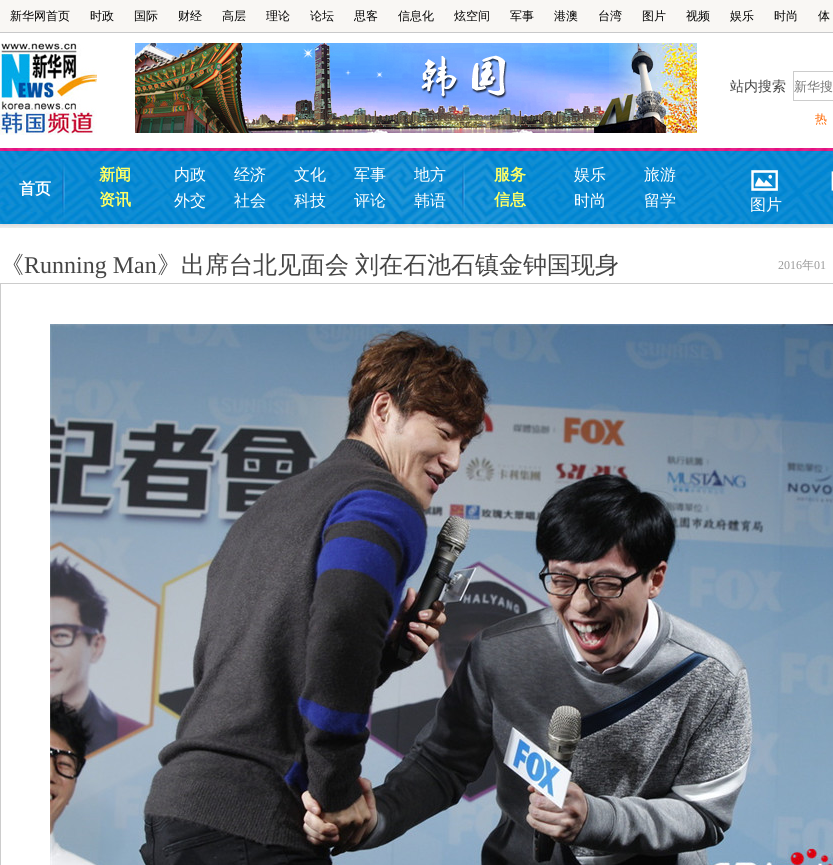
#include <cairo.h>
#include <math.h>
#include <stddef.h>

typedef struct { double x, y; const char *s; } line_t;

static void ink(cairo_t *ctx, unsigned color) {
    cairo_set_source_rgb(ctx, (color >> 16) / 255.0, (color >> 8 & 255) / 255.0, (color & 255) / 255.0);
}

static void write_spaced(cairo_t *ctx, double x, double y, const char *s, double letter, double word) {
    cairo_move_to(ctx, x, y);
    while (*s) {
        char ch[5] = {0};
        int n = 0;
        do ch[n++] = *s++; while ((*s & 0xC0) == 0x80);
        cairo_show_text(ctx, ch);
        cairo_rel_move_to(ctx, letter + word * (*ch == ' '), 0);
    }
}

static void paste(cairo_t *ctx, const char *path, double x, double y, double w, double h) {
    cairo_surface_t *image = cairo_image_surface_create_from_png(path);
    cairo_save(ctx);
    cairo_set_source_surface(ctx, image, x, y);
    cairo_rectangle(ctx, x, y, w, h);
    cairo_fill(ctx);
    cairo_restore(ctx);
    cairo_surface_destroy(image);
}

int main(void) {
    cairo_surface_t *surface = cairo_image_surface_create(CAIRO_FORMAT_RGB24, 833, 865);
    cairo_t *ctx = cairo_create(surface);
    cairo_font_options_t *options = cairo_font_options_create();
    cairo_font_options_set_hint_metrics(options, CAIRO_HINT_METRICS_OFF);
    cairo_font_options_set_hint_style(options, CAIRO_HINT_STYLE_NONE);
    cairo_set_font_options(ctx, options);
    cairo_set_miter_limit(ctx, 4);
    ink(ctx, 0xFFFFFF);
    cairo_paint(ctx);
    ink(ctx, 0xF9F7F4);
    cairo_rectangle(ctx, 0, 0, 833, 32);
    cairo_fill(ctx);
    ink(ctx, 0xC9C9CA);
    cairo_rectangle(ctx, 0, 32, 833, 1);
    cairo_fill(ctx);
    cairo_select_font_face(ctx, "WenQuanYi Zen Hei Medium", CAIRO_FONT_SLANT_NORMAL, CAIRO_FONT_WEIGHT_NORMAL);
    cairo_set_font_size(ctx, 12);
    ink(ctx, 0x000000);
    {
        static const line_t items[] = {
            {10, 20, "新华网首页"},
            {90, 20, "时政"},
            {134, 20, "国际"},
            {178, 20, "财经"},
            {222, 20, "高层"},
            {266, 20, "理论"},
            {310, 20, "论坛"},
            {354, 20, "思客"},
            {398, 20, "信息化"},
            {454, 20, "炫空间"},
            {510, 20, "军事"},
            {554, 20, "港澳"},
            {598, 20, "台湾"},
            {642, 20, "图片"},
            {686, 20, "视频"},
            {730, 20, "娱乐"},
            {774, 20, "时尚"},
            {818, 20, "体"},
        };
        for (size_t i = 0; i < sizeof items / sizeof *items; i++) {
            cairo_move_to(ctx, items[i].x, items[i].y);
            cairo_show_text(ctx, items[i].s);
        }
    }
    paste(ctx, "media/1.png", 0, 43, 97, 92);
    paste(ctx, "media/2.png", 135, 43, 562, 90);
    cairo_set_font_size(ctx, 14);
    ink(ctx, 0x454545);
    cairo_move_to(ctx, 730, 91);
    cairo_show_text(ctx, "站内搜索");
    cairo_rectangle(ctx, 793.5, 71.5, 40, 29);
    ink(ctx, 0xCCCCCC);
    cairo_set_line_width(ctx, 1);
    cairo_stroke(ctx);
    cairo_set_font_size(ctx, 13);
    ink(ctx, 0x757575);
    cairo_move_to(ctx, 794, 91);
    cairo_show_text(ctx, "新华搜");
    cairo_set_font_size(ctx, 12);
    ink(ctx, 0xFF6600);
    write_spaced(ctx, 815, 123, "热", 0, -1);
    paste(ctx, "media/3.png", 0, 148, 833, 80);
    cairo_select_font_face(ctx, "WenQuanYi Zen Hei", CAIRO_FONT_SLANT_NORMAL, CAIRO_FONT_WEIGHT_BOLD);
    cairo_set_font_size(ctx, 16);
    ink(ctx, 0xFFFFFF);
    cairo_move_to(ctx, 19, 194);
    cairo_show_text(ctx, "首页");
    ink(ctx, 0xFFFF64);
    cairo_move_to(ctx, 99, 180);
    cairo_show_text(ctx, "新闻");
    cairo_move_to(ctx, 99, 205);
    cairo_show_text(ctx, "资讯");
    cairo_select_font_face(ctx, "WenQuanYi Zen Hei Medium", CAIRO_FONT_SLANT_NORMAL, CAIRO_FONT_WEIGHT_NORMAL);
    ink(ctx, 0xFFFFFF);
    {
        static const line_t items[] = {
            {174, 180, "内政"},
            {234, 180, "经济"},
            {294, 180, "文化"},
            {354, 180, "军事"},
            {414, 180, "地方"},
            {174, 206, "外交"},
            {234, 206, "社会"},
            {294, 206, "科技"},
            {354, 206, "评论"},
            {414, 206, "韩语"},
        };
        for (size_t i = 0; i < sizeof items / sizeof *items; i++) {
            cairo_move_to(ctx, items[i].x, items[i].y);
            cairo_show_text(ctx, items[i].s);
        }
    }
    cairo_select_font_face(ctx, "WenQuanYi Zen Hei", CAIRO_FONT_SLANT_NORMAL, CAIRO_FONT_WEIGHT_BOLD);
    ink(ctx, 0xFFFF64);
    cairo_move_to(ctx, 494, 180);
    cairo_show_text(ctx, "服务");
    cairo_move_to(ctx, 494, 205);
    cairo_show_text(ctx, "信息");
    cairo_select_font_face(ctx, "WenQuanYi Zen Hei Medium", CAIRO_FONT_SLANT_NORMAL, CAIRO_FONT_WEIGHT_NORMAL);
    ink(ctx, 0xFFFFFF);
    {
        static const line_t items[] = {
            {574, 180, "娱乐"},
            {644, 180, "旅游"},
            {574, 206, "时尚"},
            {644, 206, "留学"},
        };
        for (size_t i = 0; i < sizeof items / sizeof *items; i++) {
            cairo_move_to(ctx, items[i].x, items[i].y);
            cairo_show_text(ctx, items[i].s);
        }
    }
    paste(ctx, "media/4.png", 831, 171, 2, 20);
    paste(ctx, "media/5.png", 751, 170, 27, 21);
    cairo_move_to(ctx, 750, 210);
    cairo_show_text(ctx, "图片");
    cairo_set_font_size(ctx, 24);
    ink(ctx, 0x454545);
    cairo_move_to(ctx, 0, 273);
    cairo_show_text(ctx, "《");
    cairo_select_font_face(ctx, "Liberation Serif", CAIRO_FONT_SLANT_NORMAL, CAIRO_FONT_WEIGHT_NORMAL);
    cairo_move_to(ctx, 24, 273);
    cairo_show_text(ctx, "Running Man");
    cairo_select_font_face(ctx, "WenQuanYi Zen Hei Medium", CAIRO_FONT_SLANT_NORMAL, CAIRO_FONT_WEIGHT_NORMAL);
    cairo_move_to(ctx, 157, 273);
    cairo_show_text(ctx, "》出席台北见面会");
    cairo_move_to(ctx, 355, 273);
    cairo_show_text(ctx, "刘在石池石镇金钟国现身");
    cairo_select_font_face(ctx, "Liberation Serif", CAIRO_FONT_SLANT_NORMAL, CAIRO_FONT_WEIGHT_NORMAL);
    cairo_set_font_size(ctx, 12);
    ink(ctx, 0x999999);
    cairo_move_to(ctx, 778, 269);
    cairo_show_text(ctx, "2016");
    cairo_select_font_face(ctx, "WenQuanYi Zen Hei Medium", CAIRO_FONT_SLANT_NORMAL, CAIRO_FONT_WEIGHT_NORMAL);
    cairo_move_to(ctx, 802, 269);
    cairo_show_text(ctx, "年");
    cairo_select_font_face(ctx, "Liberation Serif", CAIRO_FONT_SLANT_NORMAL, CAIRO_FONT_WEIGHT_NORMAL);
    cairo_move_to(ctx, 814, 269);
    cairo_show_text(ctx, "01");
    cairo_rectangle(ctx, 0.5, 283.5, 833, 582);
    ink(ctx, 0xCCCCCC);
    cairo_stroke(ctx);
    paste(ctx, "media/6.png", 50, 324, 783, 541);
    cairo_surface_write_to_png(surface, "image.png");
    cairo_font_options_destroy(options);
    cairo_destroy(ctx);
    cairo_surface_destroy(surface);
    return 0;
}
